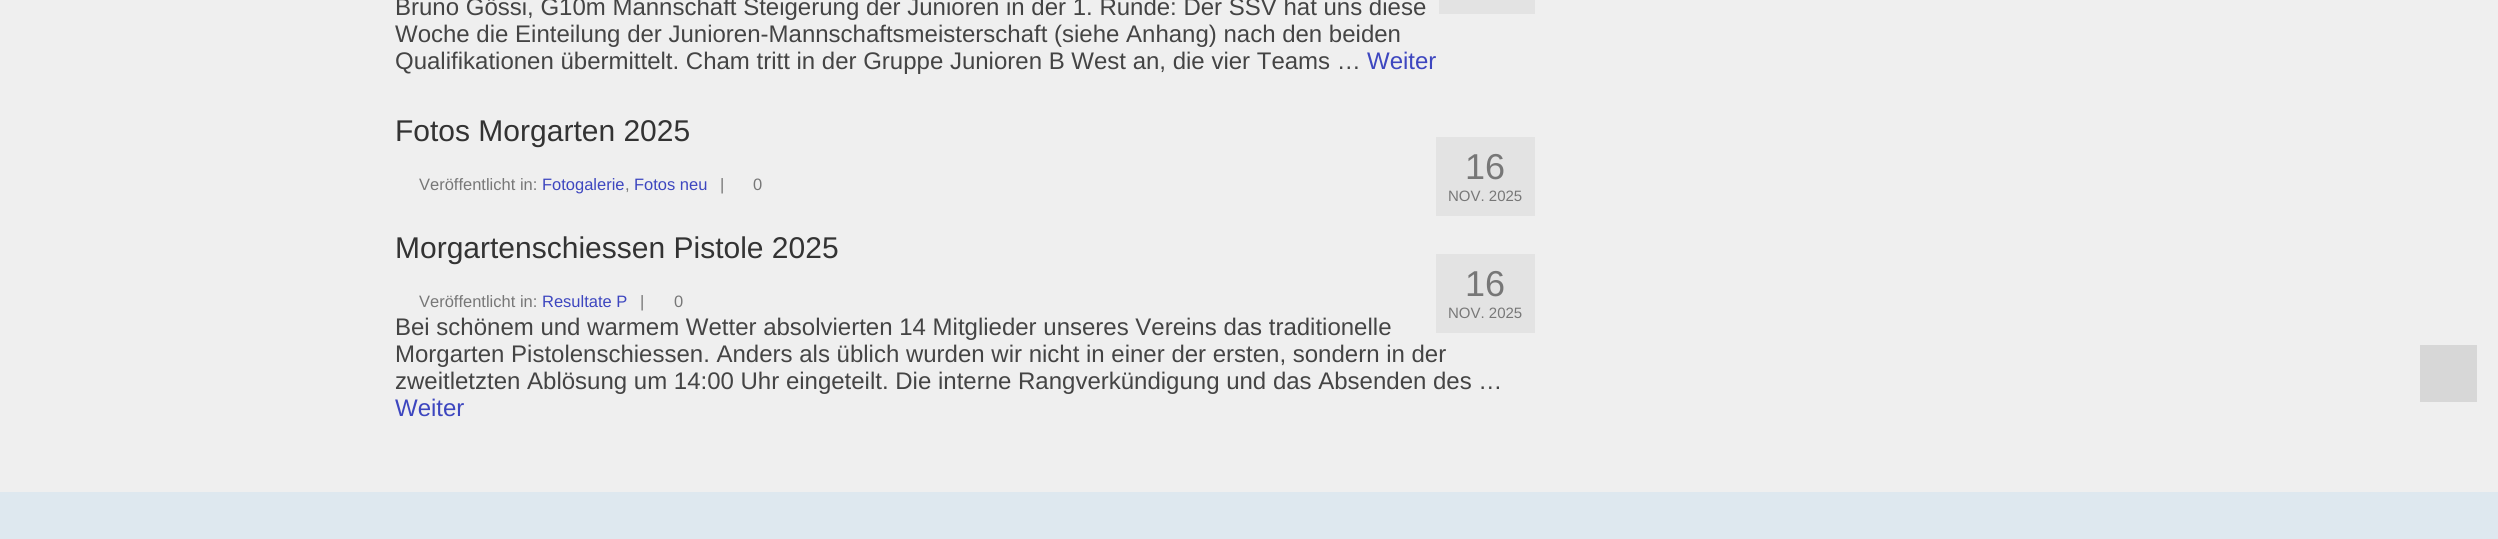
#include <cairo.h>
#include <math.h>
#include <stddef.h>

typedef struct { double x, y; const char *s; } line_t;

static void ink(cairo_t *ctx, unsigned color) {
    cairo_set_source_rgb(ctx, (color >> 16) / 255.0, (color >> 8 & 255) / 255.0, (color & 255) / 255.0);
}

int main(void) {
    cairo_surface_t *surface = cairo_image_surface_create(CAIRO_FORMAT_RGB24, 2498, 539);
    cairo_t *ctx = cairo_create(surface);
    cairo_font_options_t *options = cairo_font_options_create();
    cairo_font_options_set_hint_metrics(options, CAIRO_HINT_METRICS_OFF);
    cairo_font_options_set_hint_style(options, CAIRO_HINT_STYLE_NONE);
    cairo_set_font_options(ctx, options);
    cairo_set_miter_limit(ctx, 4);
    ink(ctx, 0xEFEFEF);
    cairo_paint(ctx);
    cairo_select_font_face(ctx, "Liberation Sans", CAIRO_FONT_SLANT_NORMAL, CAIRO_FONT_WEIGHT_NORMAL);
    cairo_set_font_size(ctx, 24);
    ink(ctx, 0x444444);
    {
        static const line_t items[] = {
            {395, 15, "Bruno Gössi, G10m Mannschaft Steigerung der Junioren in der 1. Runde: Der SSV hat uns diese"},
            {395, 42, "Woche die Einteilung der Junioren-Mannschaftsmeisterschaft (siehe Anhang) nach den beiden"},
            {395, 69, "Qualifikationen übermittelt. Cham tritt in der Gruppe Junioren B West an, die vier Teams …"},
        };
        for (size_t i = 0; i < sizeof items / sizeof *items; i++) {
            cairo_move_to(ctx, items[i].x, items[i].y);
            cairo_show_text(ctx, items[i].s);
        }
    }
    ink(ctx, 0x3D46BF);
    cairo_move_to(ctx, 1367, 69);
    cairo_show_text(ctx, "Weiter");
    ink(ctx, 0xE3E3E3);
    cairo_rectangle(ctx, 1439, 0, 96, 14);
    cairo_fill(ctx);
    cairo_set_font_size(ctx, 30);
    ink(ctx, 0x333333);
    cairo_move_to(ctx, 395, 141);
    cairo_show_text(ctx, "Fotos Morgarten 2025");
    cairo_set_font_size(ctx, 16.5);
    ink(ctx, 0x777777);
    cairo_move_to(ctx, 419, 190);
    cairo_show_text(ctx, "Veröffentlicht in:");
    ink(ctx, 0x3D46BF);
    cairo_move_to(ctx, 542, 190);
    cairo_show_text(ctx, "Fotogalerie");
    ink(ctx, 0x777777);
    cairo_move_to(ctx, 625, 190);
    cairo_show_text(ctx, ",");
    ink(ctx, 0x3D46BF);
    cairo_move_to(ctx, 634, 190);
    cairo_show_text(ctx, "Fotos neu");
    ink(ctx, 0x777777);
    cairo_move_to(ctx, 720, 190);
    cairo_show_text(ctx, "|");
    cairo_move_to(ctx, 753, 190);
    cairo_show_text(ctx, "0");
    ink(ctx, 0xE3E3E3);
    cairo_rectangle(ctx, 1436, 137, 99, 79);
    cairo_fill(ctx);
    cairo_set_font_size(ctx, 36);
    ink(ctx, 0x777777);
    cairo_move_to(ctx, 1465, 179);
    cairo_show_text(ctx, "16");
    cairo_set_font_size(ctx, 15);
    cairo_move_to(ctx, 1448, 201);
    cairo_show_text(ctx, "NOV. 2025");
    cairo_set_font_size(ctx, 30);
    ink(ctx, 0x333333);
    cairo_move_to(ctx, 395, 258);
    cairo_show_text(ctx, "Morgartenschiessen Pistole 2025");
    cairo_set_font_size(ctx, 16.5);
    ink(ctx, 0x777777);
    cairo_move_to(ctx, 419, 307);
    cairo_show_text(ctx, "Veröffentlicht in:");
    ink(ctx, 0x3D46BF);
    cairo_move_to(ctx, 542, 307);
    cairo_show_text(ctx, "Resultate P");
    ink(ctx, 0x777777);
    cairo_move_to(ctx, 640, 307);
    cairo_show_text(ctx, "|");
    cairo_move_to(ctx, 674, 307);
    cairo_show_text(ctx, "0");
    ink(ctx, 0xE3E3E3);
    cairo_rectangle(ctx, 1436, 254, 99, 79);
    cairo_fill(ctx);
    cairo_set_font_size(ctx, 36);
    ink(ctx, 0x777777);
    cairo_move_to(ctx, 1465, 296);
    cairo_show_text(ctx, "16");
    cairo_set_font_size(ctx, 15);
    cairo_move_to(ctx, 1448, 318);
    cairo_show_text(ctx, "NOV. 2025");
    cairo_set_font_size(ctx, 24);
    ink(ctx, 0x444444);
    {
        static const line_t items[] = {
            {395, 335, "Bei schönem und warmem Wetter absolvierten 14 Mitglieder unseres Vereins das traditionelle"},
            {395, 362, "Morgarten Pistolenschiessen. Anders als üblich wurden wir nicht in einer der ersten, sondern in der"},
            {395, 389, "zweitletzten Ablösung um 14:00 Uhr eingeteilt. Die interne Rangverkündigung und das Absenden des …"},
        };
        for (size_t i = 0; i < sizeof items / sizeof *items; i++) {
            cairo_move_to(ctx, items[i].x, items[i].y);
            cairo_show_text(ctx, items[i].s);
        }
    }
    ink(ctx, 0x3D46BF);
    cairo_move_to(ctx, 395, 416);
    cairo_show_text(ctx, "Weiter");
    ink(ctx, 0xDEE8EF);
    cairo_rectangle(ctx, 0, 492, 2498, 47);
    cairo_fill(ctx);
    ink(ctx, 0xD7D7D7);
    cairo_rectangle(ctx, 2420, 345, 57, 57);
    cairo_fill(ctx);
    cairo_surface_write_to_png(surface, "image.png");
    cairo_font_options_destroy(options);
    cairo_destroy(ctx);
    cairo_surface_destroy(surface);
    return 0;
}
